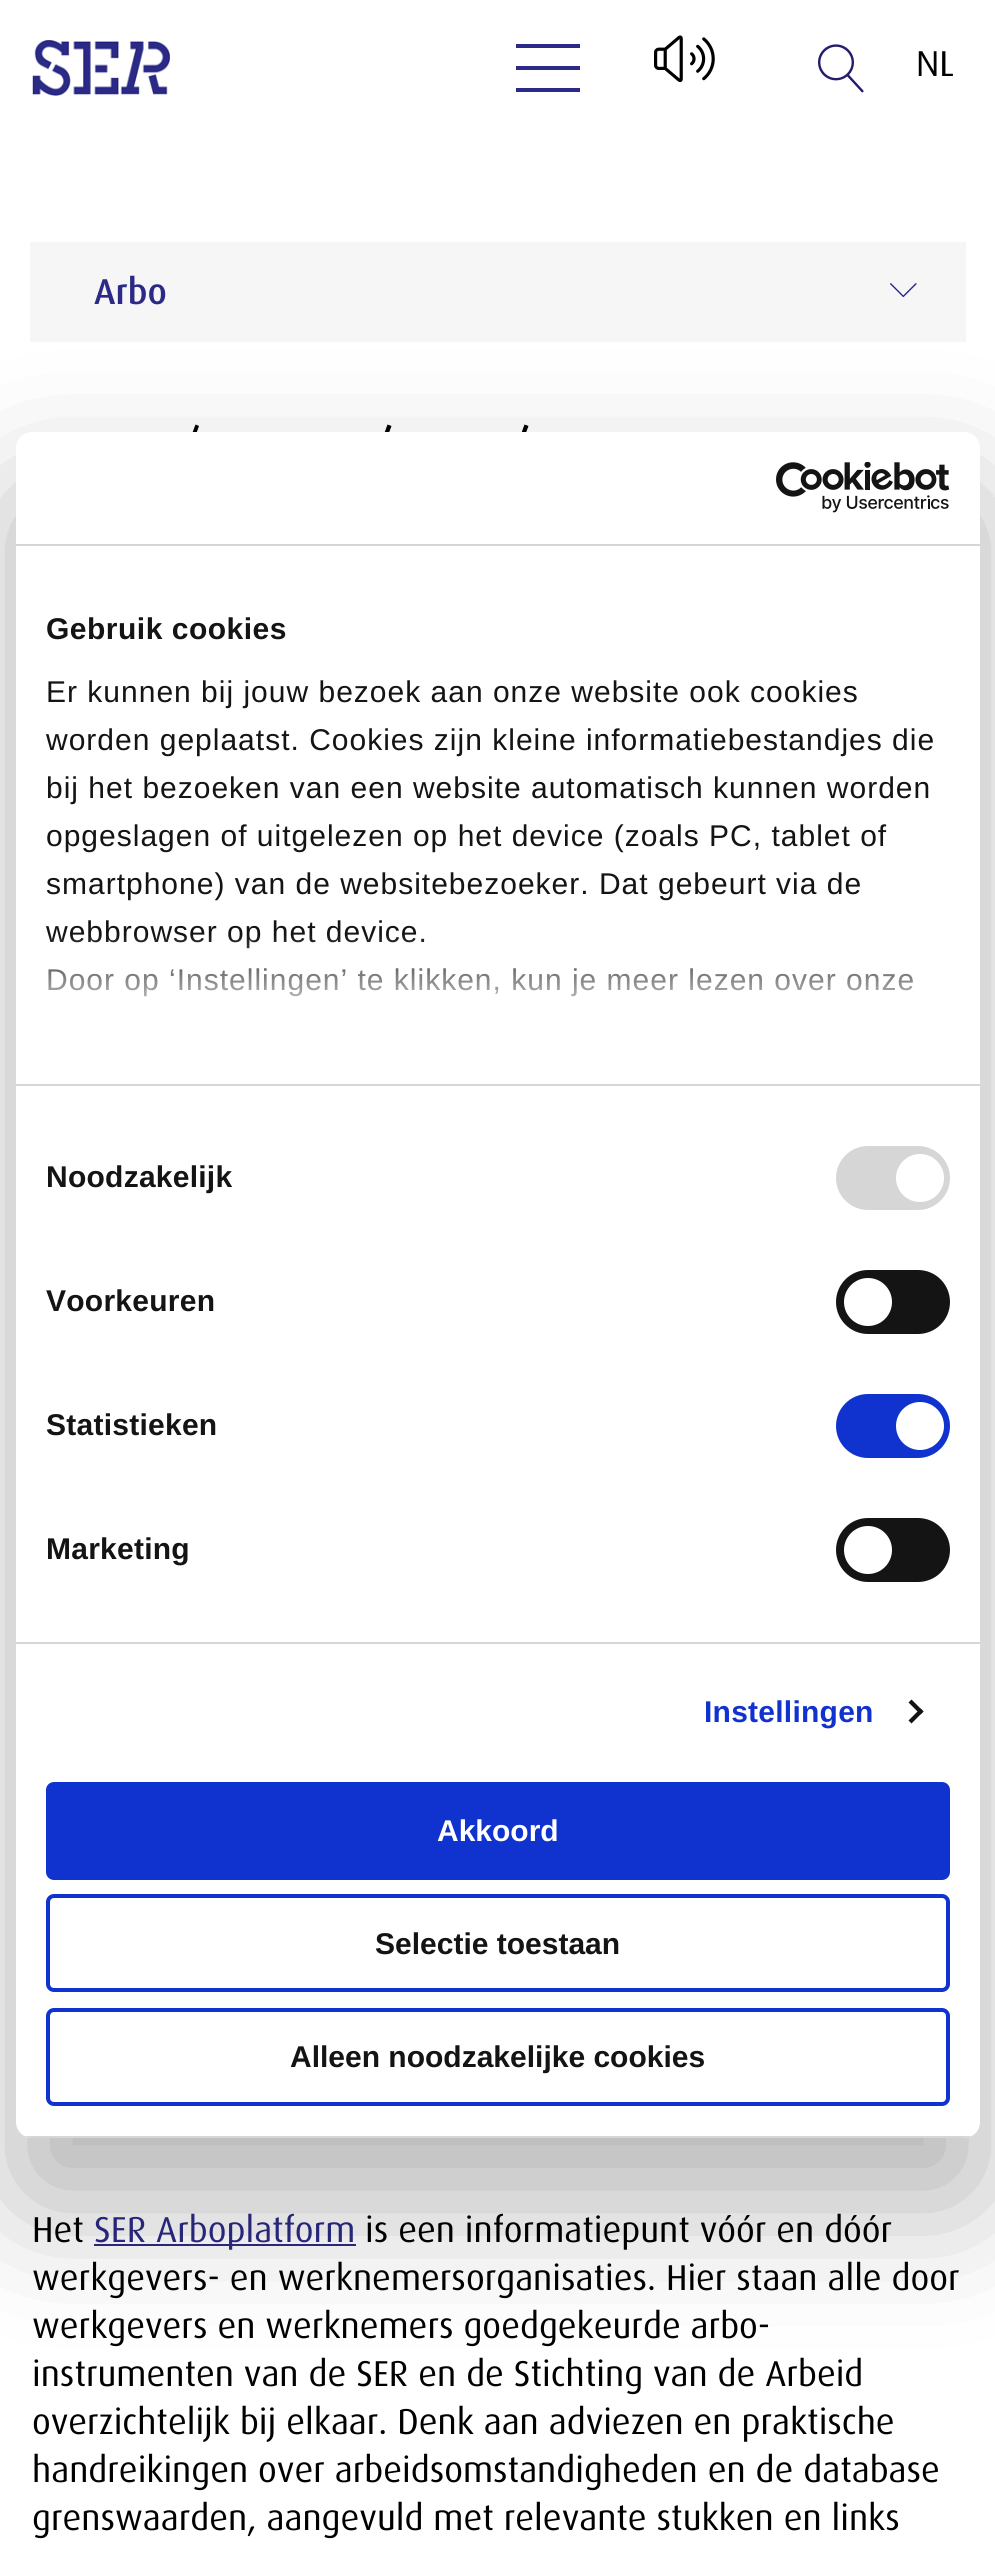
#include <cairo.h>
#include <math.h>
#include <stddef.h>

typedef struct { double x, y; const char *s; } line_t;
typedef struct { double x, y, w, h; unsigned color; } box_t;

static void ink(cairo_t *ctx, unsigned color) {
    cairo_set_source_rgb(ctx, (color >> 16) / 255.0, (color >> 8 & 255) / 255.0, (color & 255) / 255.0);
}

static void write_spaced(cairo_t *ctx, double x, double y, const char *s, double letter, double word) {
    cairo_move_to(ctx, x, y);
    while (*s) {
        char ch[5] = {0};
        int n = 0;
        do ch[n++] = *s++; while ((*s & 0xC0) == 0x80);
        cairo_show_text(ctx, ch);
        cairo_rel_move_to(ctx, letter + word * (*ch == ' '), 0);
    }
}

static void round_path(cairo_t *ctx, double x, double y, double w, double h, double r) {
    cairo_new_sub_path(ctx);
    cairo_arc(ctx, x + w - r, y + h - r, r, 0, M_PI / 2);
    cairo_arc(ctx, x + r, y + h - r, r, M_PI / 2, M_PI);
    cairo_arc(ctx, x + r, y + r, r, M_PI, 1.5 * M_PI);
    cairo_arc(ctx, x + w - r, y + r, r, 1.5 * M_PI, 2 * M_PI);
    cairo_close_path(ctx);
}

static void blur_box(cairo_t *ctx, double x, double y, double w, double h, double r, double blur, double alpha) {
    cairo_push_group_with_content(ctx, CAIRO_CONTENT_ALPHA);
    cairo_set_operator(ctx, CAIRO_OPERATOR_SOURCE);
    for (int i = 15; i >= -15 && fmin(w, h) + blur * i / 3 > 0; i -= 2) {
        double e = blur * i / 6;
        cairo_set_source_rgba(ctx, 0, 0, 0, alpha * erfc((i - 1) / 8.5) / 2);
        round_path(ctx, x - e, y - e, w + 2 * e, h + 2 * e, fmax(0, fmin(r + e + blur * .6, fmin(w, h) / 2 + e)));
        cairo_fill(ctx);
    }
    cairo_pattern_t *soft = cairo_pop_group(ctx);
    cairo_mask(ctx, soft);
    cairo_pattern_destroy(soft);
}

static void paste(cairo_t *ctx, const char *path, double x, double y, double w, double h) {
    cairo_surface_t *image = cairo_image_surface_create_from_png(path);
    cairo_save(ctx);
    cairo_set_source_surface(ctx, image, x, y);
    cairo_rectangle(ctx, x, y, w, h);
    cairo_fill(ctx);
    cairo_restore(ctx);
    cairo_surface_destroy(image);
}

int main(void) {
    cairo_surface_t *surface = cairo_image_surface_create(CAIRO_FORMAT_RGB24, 995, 2567);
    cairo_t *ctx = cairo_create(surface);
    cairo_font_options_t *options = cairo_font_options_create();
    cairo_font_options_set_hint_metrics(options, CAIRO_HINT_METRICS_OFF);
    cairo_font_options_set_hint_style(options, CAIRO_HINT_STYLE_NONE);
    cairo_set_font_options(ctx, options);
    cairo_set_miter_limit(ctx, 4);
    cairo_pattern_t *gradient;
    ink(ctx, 0xFFFFFF);
    cairo_paint(ctx);
    paste(ctx, "media/1.png", 32, 40, 138, 56);
    {
        static const box_t items[] = {
            {516, 66, 64, 4, 0x2B2A86},
            {516, 44, 64, 4, 0x2B2A86},
            {516, 88, 64, 4, 0x2B2A86},
        };
        for (size_t i = 0; i < sizeof items / sizeof *items; i++) {
            ink(ctx, items[i].color);
            cairo_rectangle(ctx, items[i].x, items[i].y, items[i].w, items[i].h);
            cairo_fill(ctx);
        }
    }
    paste(ctx, "media/2.png", 654, 35, 61, 48);
    paste(ctx, "media/3.png", 818, 44, 46, 49);
    cairo_select_font_face(ctx, "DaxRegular", CAIRO_FONT_SLANT_NORMAL, CAIRO_FONT_WEIGHT_NORMAL);
    cairo_set_font_size(ctx, 36);
    ink(ctx, 0x000000);
    cairo_move_to(ctx, 916, 76);
    cairo_show_text(ctx, "NL");
    ink(ctx, 0xF6F6F6);
    cairo_rectangle(ctx, 30, 242, 936, 100);
    cairo_fill(ctx);
    cairo_select_font_face(ctx, "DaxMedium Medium", CAIRO_FONT_SLANT_NORMAL, CAIRO_FONT_WEIGHT_NORMAL);
    ink(ctx, 0x2B2A86);
    cairo_move_to(ctx, 94, 304);
    cairo_show_text(ctx, "Arbo");
    paste(ctx, "media/4.png", 890, 283, 27, 15);
    ink(ctx, 0x000000);
    cairo_new_path(ctx);
    cairo_move_to(ctx, 195.5, 424.5);
    cairo_line_to(ctx, 199, 426);
    cairo_line_to(ctx, 185.5, 463.5);
    cairo_line_to(ctx, 181.5, 462);
    cairo_close_path(ctx);
    cairo_fill(ctx);
    cairo_new_path(ctx);
    cairo_move_to(ctx, 387.5, 424.5);
    cairo_line_to(ctx, 391.5, 426);
    cairo_line_to(ctx, 377.5, 463.5);
    cairo_line_to(ctx, 374, 462);
    cairo_close_path(ctx);
    cairo_fill(ctx);
    cairo_new_path(ctx);
    cairo_move_to(ctx, 524.5, 424.5);
    cairo_line_to(ctx, 528.5, 426);
    cairo_line_to(ctx, 514.5, 463.5);
    cairo_line_to(ctx, 511, 462);
    cairo_close_path(ctx);
    cairo_fill(ctx);
    cairo_select_font_face(ctx, "DaxRegular", CAIRO_FONT_SLANT_NORMAL, CAIRO_FONT_WEIGHT_NORMAL);
    cairo_move_to(ctx, 32, 2242);
    cairo_show_text(ctx, "Het");
    ink(ctx, 0x2B2A86);
    cairo_rectangle(ctx, 94, 2244, 262, 2);
    cairo_fill(ctx);
    cairo_move_to(ctx, 94, 2242);
    cairo_show_text(ctx, "SER Arboplatform");
    ink(ctx, 0x000000);
    {
        static const line_t items[] = {
            {365, 2242, "is een informatiepunt vóór en dóór"},
            {32, 2290, "werkgevers- en werknemersorganisaties. Hier staan alle door"},
            {32, 2338, "werkgevers en werknemers goedgekeurde arbo-"},
            {32, 2386, "instrumenten van de SER en de Stichting van de Arbeid"},
            {32, 2434, "overzichtelijk bij elkaar. Denk aan adviezen en praktische"},
            {32, 2482, "handreikingen over arbeidsomstandigheden en de database"},
            {32, 2530, "grenswaarden, aangevuld met relevante stukken en links"},
        };
        for (size_t i = 0; i < sizeof items / sizeof *items; i++) {
            cairo_move_to(ctx, items[i].x, items[i].y);
            cairo_show_text(ctx, items[i].s);
        }
    }
    ink(ctx, 0x000000);
    blur_box(ctx, 16, 496, 964, 1706, 16, 68, 0.3);
    ink(ctx, 0xFFFFFF);
    round_path(ctx, 16, 432, 964, 1706, 16);
    cairo_fill(ctx);
    ink(ctx, 0xD6D6D6);
    cairo_rectangle(ctx, 16, 544, 964, 2);
    cairo_fill(ctx);
    paste(ctx, "media/5.png", 776, 462, 174, 51);
    cairo_rectangle(ctx, 16, 1084, 964, 2);
    cairo_fill(ctx);
    cairo_select_font_face(ctx, "Liberation Sans", CAIRO_FONT_SLANT_NORMAL, CAIRO_FONT_WEIGHT_BOLD);
    cairo_set_font_size(ctx, 30);
    ink(ctx, 0x141414);
    write_spaced(ctx, 46, 639, "Gebruik cookies", 0.5, 0);
    cairo_select_font_face(ctx, "Liberation Sans", CAIRO_FONT_SLANT_NORMAL, CAIRO_FONT_WEIGHT_NORMAL);
    {
        static const line_t items[] = {
            {46, 702, "Er kunnen bij jouw bezoek aan onze website ook cookies"},
            {46, 750, "worden geplaatst. Cookies zijn kleine informatiebestandjes die"},
            {46, 798, "bij het bezoeken van een website automatisch kunnen worden"},
            {46, 846, "opgeslagen of uitgelezen op het device (zoals PC, tablet of"},
            {46, 894, "smartphone) van de websitebezoeker. Dat gebeurt via de"},
            {46, 942, "webbrowser op het device."},
            {46, 990, "Door op ‘Instellingen’ te klikken, kun je meer lezen over onze"},
        };
        for (size_t i = 0; i < sizeof items / sizeof *items; i++) {
            write_spaced(ctx, items[i].x, items[i].y, items[i].s, 1, 0);
        }
    }
    gradient = cairo_pattern_create_linear(485, 1084, 485, 934);
    cairo_pattern_add_color_stop_rgba(gradient, 0, 1, 1, 1, 1);
    cairo_pattern_add_color_stop_rgba(gradient, 0.5, 1, 1, 1, 0.8);
    cairo_pattern_add_color_stop_rgba(gradient, 1, 1, 1, 1, 0);
    cairo_set_source(ctx, gradient);
    cairo_pattern_destroy(gradient);
    cairo_rectangle(ctx, 48, 936, 865, 61);
    cairo_fill(ctx);
    ink(ctx, 0xD6D6D6);
    cairo_rectangle(ctx, 16, 1642, 964, 2);
    cairo_fill(ctx);
    cairo_select_font_face(ctx, "Liberation Sans", CAIRO_FONT_SLANT_NORMAL, CAIRO_FONT_WEIGHT_BOLD);
    ink(ctx, 0x141414);
    write_spaced(ctx, 46, 1187, "Noodzakelijk", 0.25, 0);
    ink(ctx, 0xD6D6D6);
    round_path(ctx, 836, 1146, 114, 64, 32);
    cairo_fill(ctx);
    ink(ctx, 0xFFFFFF);
    cairo_arc(ctx, 920, 1178, 24, 0, 2 * M_PI);
    cairo_fill(ctx);
    ink(ctx, 0x141414);
    write_spaced(ctx, 46, 1311, "Voorkeuren", 0.25, 0);
    round_path(ctx, 836, 1270, 114, 64, 32);
    cairo_fill(ctx);
    ink(ctx, 0xFFFFFF);
    cairo_arc(ctx, 868, 1302, 24, 0, 2 * M_PI);
    cairo_fill(ctx);
    ink(ctx, 0x141414);
    write_spaced(ctx, 46, 1435, "Statistieken", 0.25, 0);
    ink(ctx, 0x1032CF);
    round_path(ctx, 836, 1394, 114, 64, 32);
    cairo_fill(ctx);
    ink(ctx, 0xFFFFFF);
    cairo_arc(ctx, 920, 1426, 24, 0, 2 * M_PI);
    cairo_fill(ctx);
    ink(ctx, 0x141414);
    write_spaced(ctx, 46, 1559, "Marketing", 0.25, 0);
    round_path(ctx, 836, 1518, 114, 64, 32);
    cairo_fill(ctx);
    ink(ctx, 0xFFFFFF);
    cairo_arc(ctx, 868, 1550, 24, 0, 2 * M_PI);
    cairo_fill(ctx);
    ink(ctx, 0x1032CF);
    write_spaced(ctx, 704, 1722, "Instellingen", 0.25, 0);
    ink(ctx, 0x141414);
    cairo_new_path(ctx);
    cairo_move_to(ctx, 911.5, 1699.5);
    cairo_line_to(ctx, 923.5, 1711.5);
    cairo_line_to(ctx, 920.5, 1714.5);
    cairo_line_to(ctx, 908.5, 1702.5);
    cairo_close_path(ctx);
    cairo_fill(ctx);
    cairo_new_path(ctx);
    cairo_move_to(ctx, 920.5, 1708.5);
    cairo_line_to(ctx, 923.5, 1711.5);
    cairo_line_to(ctx, 911.5, 1723.5);
    cairo_line_to(ctx, 908.5, 1720.5);
    cairo_close_path(ctx);
    cairo_fill(ctx);
    cairo_save(ctx);
    round_path(ctx, 16, 432, 964, 1706, 16);
    cairo_clip(ctx);
    ink(ctx, 0xD6D6D6);
    cairo_rectangle(ctx, 16, 2136, 964, 2);
    cairo_fill(ctx);
    cairo_restore(ctx);
    ink(ctx, 0x1032CF);
    round_path(ctx, 48, 1784, 900, 94, 6);
    cairo_fill_preserve(ctx);
    cairo_set_line_width(ctx, 4);
    cairo_stroke(ctx);
    ink(ctx, 0xFFFFFF);
    cairo_move_to(ctx, 437, 1841);
    cairo_show_text(ctx, "Akkoord");
    round_path(ctx, 48, 1896, 900, 94, 6);
    ink(ctx, 0x1032CF);
    cairo_stroke(ctx);
    ink(ctx, 0x141414);
    cairo_move_to(ctx, 375, 1954);
    cairo_show_text(ctx, "Selectie toestaan");
    round_path(ctx, 48, 2010, 900, 94, 6);
    ink(ctx, 0x1032CF);
    cairo_stroke(ctx);
    ink(ctx, 0x141414);
    cairo_move_to(ctx, 290, 2067);
    cairo_show_text(ctx, "Alleen noodzakelijke cookies");
    cairo_surface_write_to_png(surface, "image.png");
    cairo_font_options_destroy(options);
    cairo_destroy(ctx);
    cairo_surface_destroy(surface);
    return 0;
}
